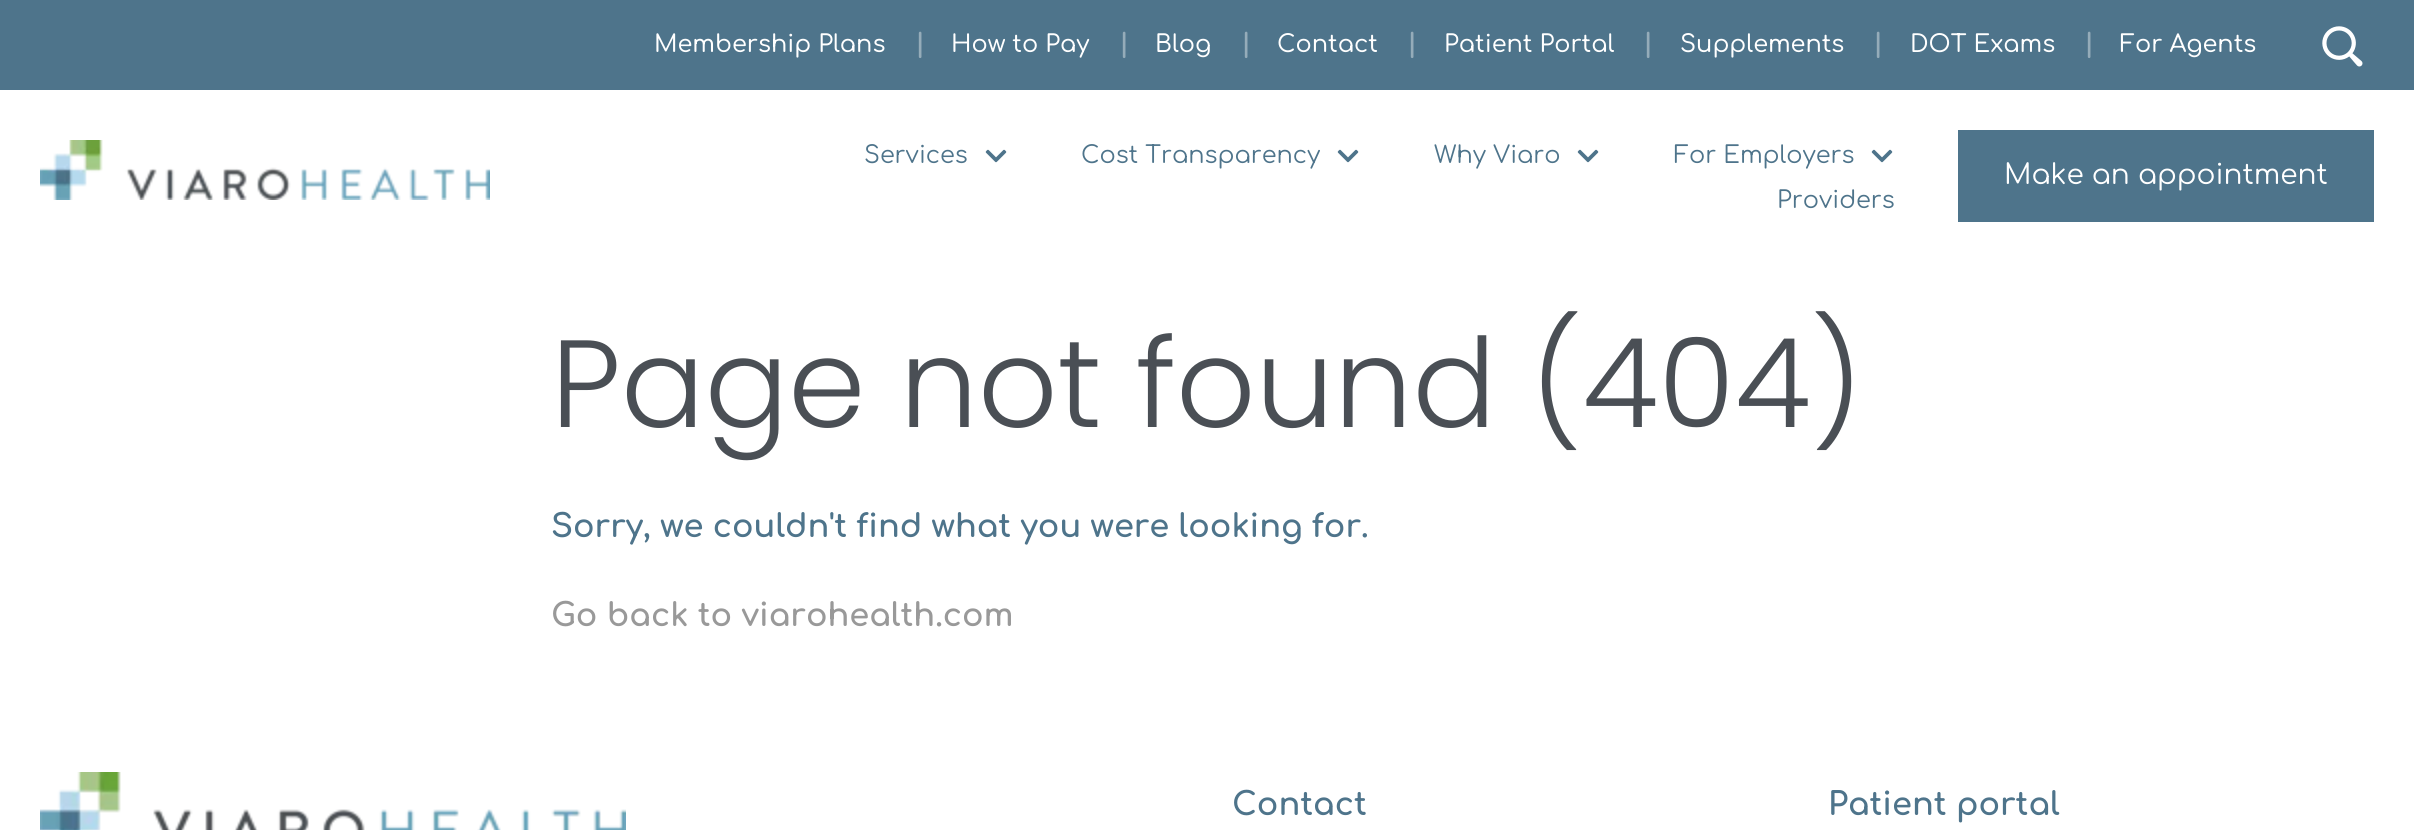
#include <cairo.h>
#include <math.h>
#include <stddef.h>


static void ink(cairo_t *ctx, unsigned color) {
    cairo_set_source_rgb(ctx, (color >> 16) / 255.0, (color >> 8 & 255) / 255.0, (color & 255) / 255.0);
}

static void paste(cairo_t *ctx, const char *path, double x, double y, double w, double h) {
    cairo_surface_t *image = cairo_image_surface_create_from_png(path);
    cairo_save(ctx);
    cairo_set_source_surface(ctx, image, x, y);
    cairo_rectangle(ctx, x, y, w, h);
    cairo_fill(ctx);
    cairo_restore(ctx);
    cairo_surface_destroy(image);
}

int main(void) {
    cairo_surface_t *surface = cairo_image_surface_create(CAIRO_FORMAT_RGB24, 2414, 830);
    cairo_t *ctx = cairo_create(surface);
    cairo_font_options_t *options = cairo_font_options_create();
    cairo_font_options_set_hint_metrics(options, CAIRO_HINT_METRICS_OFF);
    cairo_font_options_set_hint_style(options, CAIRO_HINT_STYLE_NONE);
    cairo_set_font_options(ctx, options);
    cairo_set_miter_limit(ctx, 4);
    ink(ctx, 0xFFFFFF);
    cairo_paint(ctx);
    ink(ctx, 0x4E748B);
    cairo_rectangle(ctx, 0, 0, 2414, 90);
    cairo_fill(ctx);
    cairo_select_font_face(ctx, "Comfortaa Medium", CAIRO_FONT_SLANT_NORMAL, CAIRO_FONT_WEIGHT_NORMAL);
    cairo_set_font_size(ctx, 24);
    ink(ctx, 0xFFFFFF);
    cairo_move_to(ctx, 654, 52);
    cairo_show_text(ctx, "Membership Plans");
    cairo_select_font_face(ctx, "Comfortaa", CAIRO_FONT_SLANT_NORMAL, CAIRO_FONT_WEIGHT_BOLD);
    cairo_set_font_size(ctx, 26);
    ink(ctx, 0x95ACB9);
    cairo_move_to(ctx, 915, 52);
    cairo_show_text(ctx, "|");
    cairo_select_font_face(ctx, "Comfortaa Medium", CAIRO_FONT_SLANT_NORMAL, CAIRO_FONT_WEIGHT_NORMAL);
    cairo_set_font_size(ctx, 24);
    ink(ctx, 0xFFFFFF);
    cairo_move_to(ctx, 951, 52);
    cairo_show_text(ctx, "How to Pay");
    cairo_select_font_face(ctx, "Comfortaa", CAIRO_FONT_SLANT_NORMAL, CAIRO_FONT_WEIGHT_BOLD);
    cairo_set_font_size(ctx, 26);
    ink(ctx, 0x95ACB9);
    cairo_move_to(ctx, 1119, 52);
    cairo_show_text(ctx, "|");
    cairo_select_font_face(ctx, "Comfortaa Medium", CAIRO_FONT_SLANT_NORMAL, CAIRO_FONT_WEIGHT_NORMAL);
    cairo_set_font_size(ctx, 24);
    ink(ctx, 0xFFFFFF);
    cairo_move_to(ctx, 1155, 52);
    cairo_show_text(ctx, "Blog");
    cairo_select_font_face(ctx, "Comfortaa", CAIRO_FONT_SLANT_NORMAL, CAIRO_FONT_WEIGHT_BOLD);
    cairo_set_font_size(ctx, 26);
    ink(ctx, 0x95ACB9);
    cairo_move_to(ctx, 1241, 52);
    cairo_show_text(ctx, "|");
    cairo_select_font_face(ctx, "Comfortaa Medium", CAIRO_FONT_SLANT_NORMAL, CAIRO_FONT_WEIGHT_NORMAL);
    cairo_set_font_size(ctx, 24);
    ink(ctx, 0xFFFFFF);
    cairo_move_to(ctx, 1277, 52);
    cairo_show_text(ctx, "Contact");
    cairo_select_font_face(ctx, "Comfortaa", CAIRO_FONT_SLANT_NORMAL, CAIRO_FONT_WEIGHT_BOLD);
    cairo_set_font_size(ctx, 26);
    ink(ctx, 0x95ACB9);
    cairo_move_to(ctx, 1407, 52);
    cairo_show_text(ctx, "|");
    cairo_select_font_face(ctx, "Comfortaa Medium", CAIRO_FONT_SLANT_NORMAL, CAIRO_FONT_WEIGHT_NORMAL);
    cairo_set_font_size(ctx, 24);
    ink(ctx, 0xFFFFFF);
    cairo_move_to(ctx, 1444, 52);
    cairo_show_text(ctx, "Patient Portal");
    cairo_select_font_face(ctx, "Comfortaa", CAIRO_FONT_SLANT_NORMAL, CAIRO_FONT_WEIGHT_BOLD);
    cairo_set_font_size(ctx, 26);
    ink(ctx, 0x95ACB9);
    cairo_move_to(ctx, 1643, 52);
    cairo_show_text(ctx, "|");
    cairo_select_font_face(ctx, "Comfortaa Medium", CAIRO_FONT_SLANT_NORMAL, CAIRO_FONT_WEIGHT_NORMAL);
    cairo_set_font_size(ctx, 24);
    ink(ctx, 0xFFFFFF);
    cairo_move_to(ctx, 1680, 52);
    cairo_show_text(ctx, "Supplements");
    cairo_select_font_face(ctx, "Comfortaa", CAIRO_FONT_SLANT_NORMAL, CAIRO_FONT_WEIGHT_BOLD);
    cairo_set_font_size(ctx, 26);
    ink(ctx, 0x95ACB9);
    cairo_move_to(ctx, 1873, 52);
    cairo_show_text(ctx, "|");
    cairo_select_font_face(ctx, "Comfortaa Medium", CAIRO_FONT_SLANT_NORMAL, CAIRO_FONT_WEIGHT_NORMAL);
    cairo_set_font_size(ctx, 24);
    ink(ctx, 0xFFFFFF);
    cairo_move_to(ctx, 1910, 52);
    cairo_show_text(ctx, "DOT Exams");
    cairo_select_font_face(ctx, "Comfortaa", CAIRO_FONT_SLANT_NORMAL, CAIRO_FONT_WEIGHT_BOLD);
    cairo_set_font_size(ctx, 26);
    ink(ctx, 0x95ACB9);
    cairo_move_to(ctx, 2084, 52);
    cairo_show_text(ctx, "|");
    cairo_select_font_face(ctx, "Comfortaa Medium", CAIRO_FONT_SLANT_NORMAL, CAIRO_FONT_WEIGHT_NORMAL);
    cairo_set_font_size(ctx, 24);
    ink(ctx, 0xFFFFFF);
    cairo_move_to(ctx, 2120, 52);
    cairo_show_text(ctx, "For Agents");
    paste(ctx, "media/1.png", 2322, 26, 41, 41);
    paste(ctx, "media/2.png", 40, 140, 450, 60);
    cairo_select_font_face(ctx, "Comfortaa", CAIRO_FONT_SLANT_NORMAL, CAIRO_FONT_WEIGHT_NORMAL);
    ink(ctx, 0x4E748B);
    cairo_move_to(ctx, 864, 163);
    cairo_show_text(ctx, "Services");
    paste(ctx, "media/3.png", 985, 149, 22, 14);
    cairo_move_to(ctx, 1081, 163);
    cairo_show_text(ctx, "Cost Transparency");
    paste(ctx, "media/3.png", 1337, 149, 22, 14);
    cairo_move_to(ctx, 1434, 163);
    cairo_show_text(ctx, "Why Viaro");
    paste(ctx, "media/3.png", 1577, 149, 22, 14);
    cairo_move_to(ctx, 1674, 163);
    cairo_show_text(ctx, "For Employers");
    paste(ctx, "media/3.png", 1871, 149, 22, 14);
    cairo_move_to(ctx, 1777, 208);
    cairo_show_text(ctx, "Providers");
    cairo_rectangle(ctx, 1958, 130, 416, 92);
    cairo_fill(ctx);
    cairo_set_font_size(ctx, 28);
    ink(ctx, 0xFFFFFF);
    cairo_move_to(ctx, 2004, 184);
    cairo_show_text(ctx, "Make an appointment");
    cairo_select_font_face(ctx, "Poppins Light", CAIRO_FONT_SLANT_NORMAL, CAIRO_FONT_WEIGHT_NORMAL);
    cairo_set_font_size(ctx, 124);
    ink(ctx, 0x4A4F55);
    cairo_move_to(ctx, 551, 427);
    cairo_show_text(ctx, "Page not found (404)");
    cairo_select_font_face(ctx, "Comfortaa", CAIRO_FONT_SLANT_NORMAL, CAIRO_FONT_WEIGHT_BOLD);
    cairo_set_font_size(ctx, 32);
    ink(ctx, 0x4E748B);
    cairo_move_to(ctx, 551, 537);
    cairo_show_text(ctx, "Sorry, we couldn't find what you were looking for.");
    ink(ctx, 0x999999);
    cairo_move_to(ctx, 551, 626);
    cairo_show_text(ctx, "Go back to viarohealth.com");
    paste(ctx, "media/4.png", 40, 772, 586, 58);
    ink(ctx, 0x4E748B);
    cairo_move_to(ctx, 1232, 815);
    cairo_show_text(ctx, "Contact");
    cairo_move_to(ctx, 1828, 815);
    cairo_show_text(ctx, "Patient portal");
    cairo_surface_write_to_png(surface, "image.png");
    cairo_font_options_destroy(options);
    cairo_destroy(ctx);
    cairo_surface_destroy(surface);
    return 0;
}
